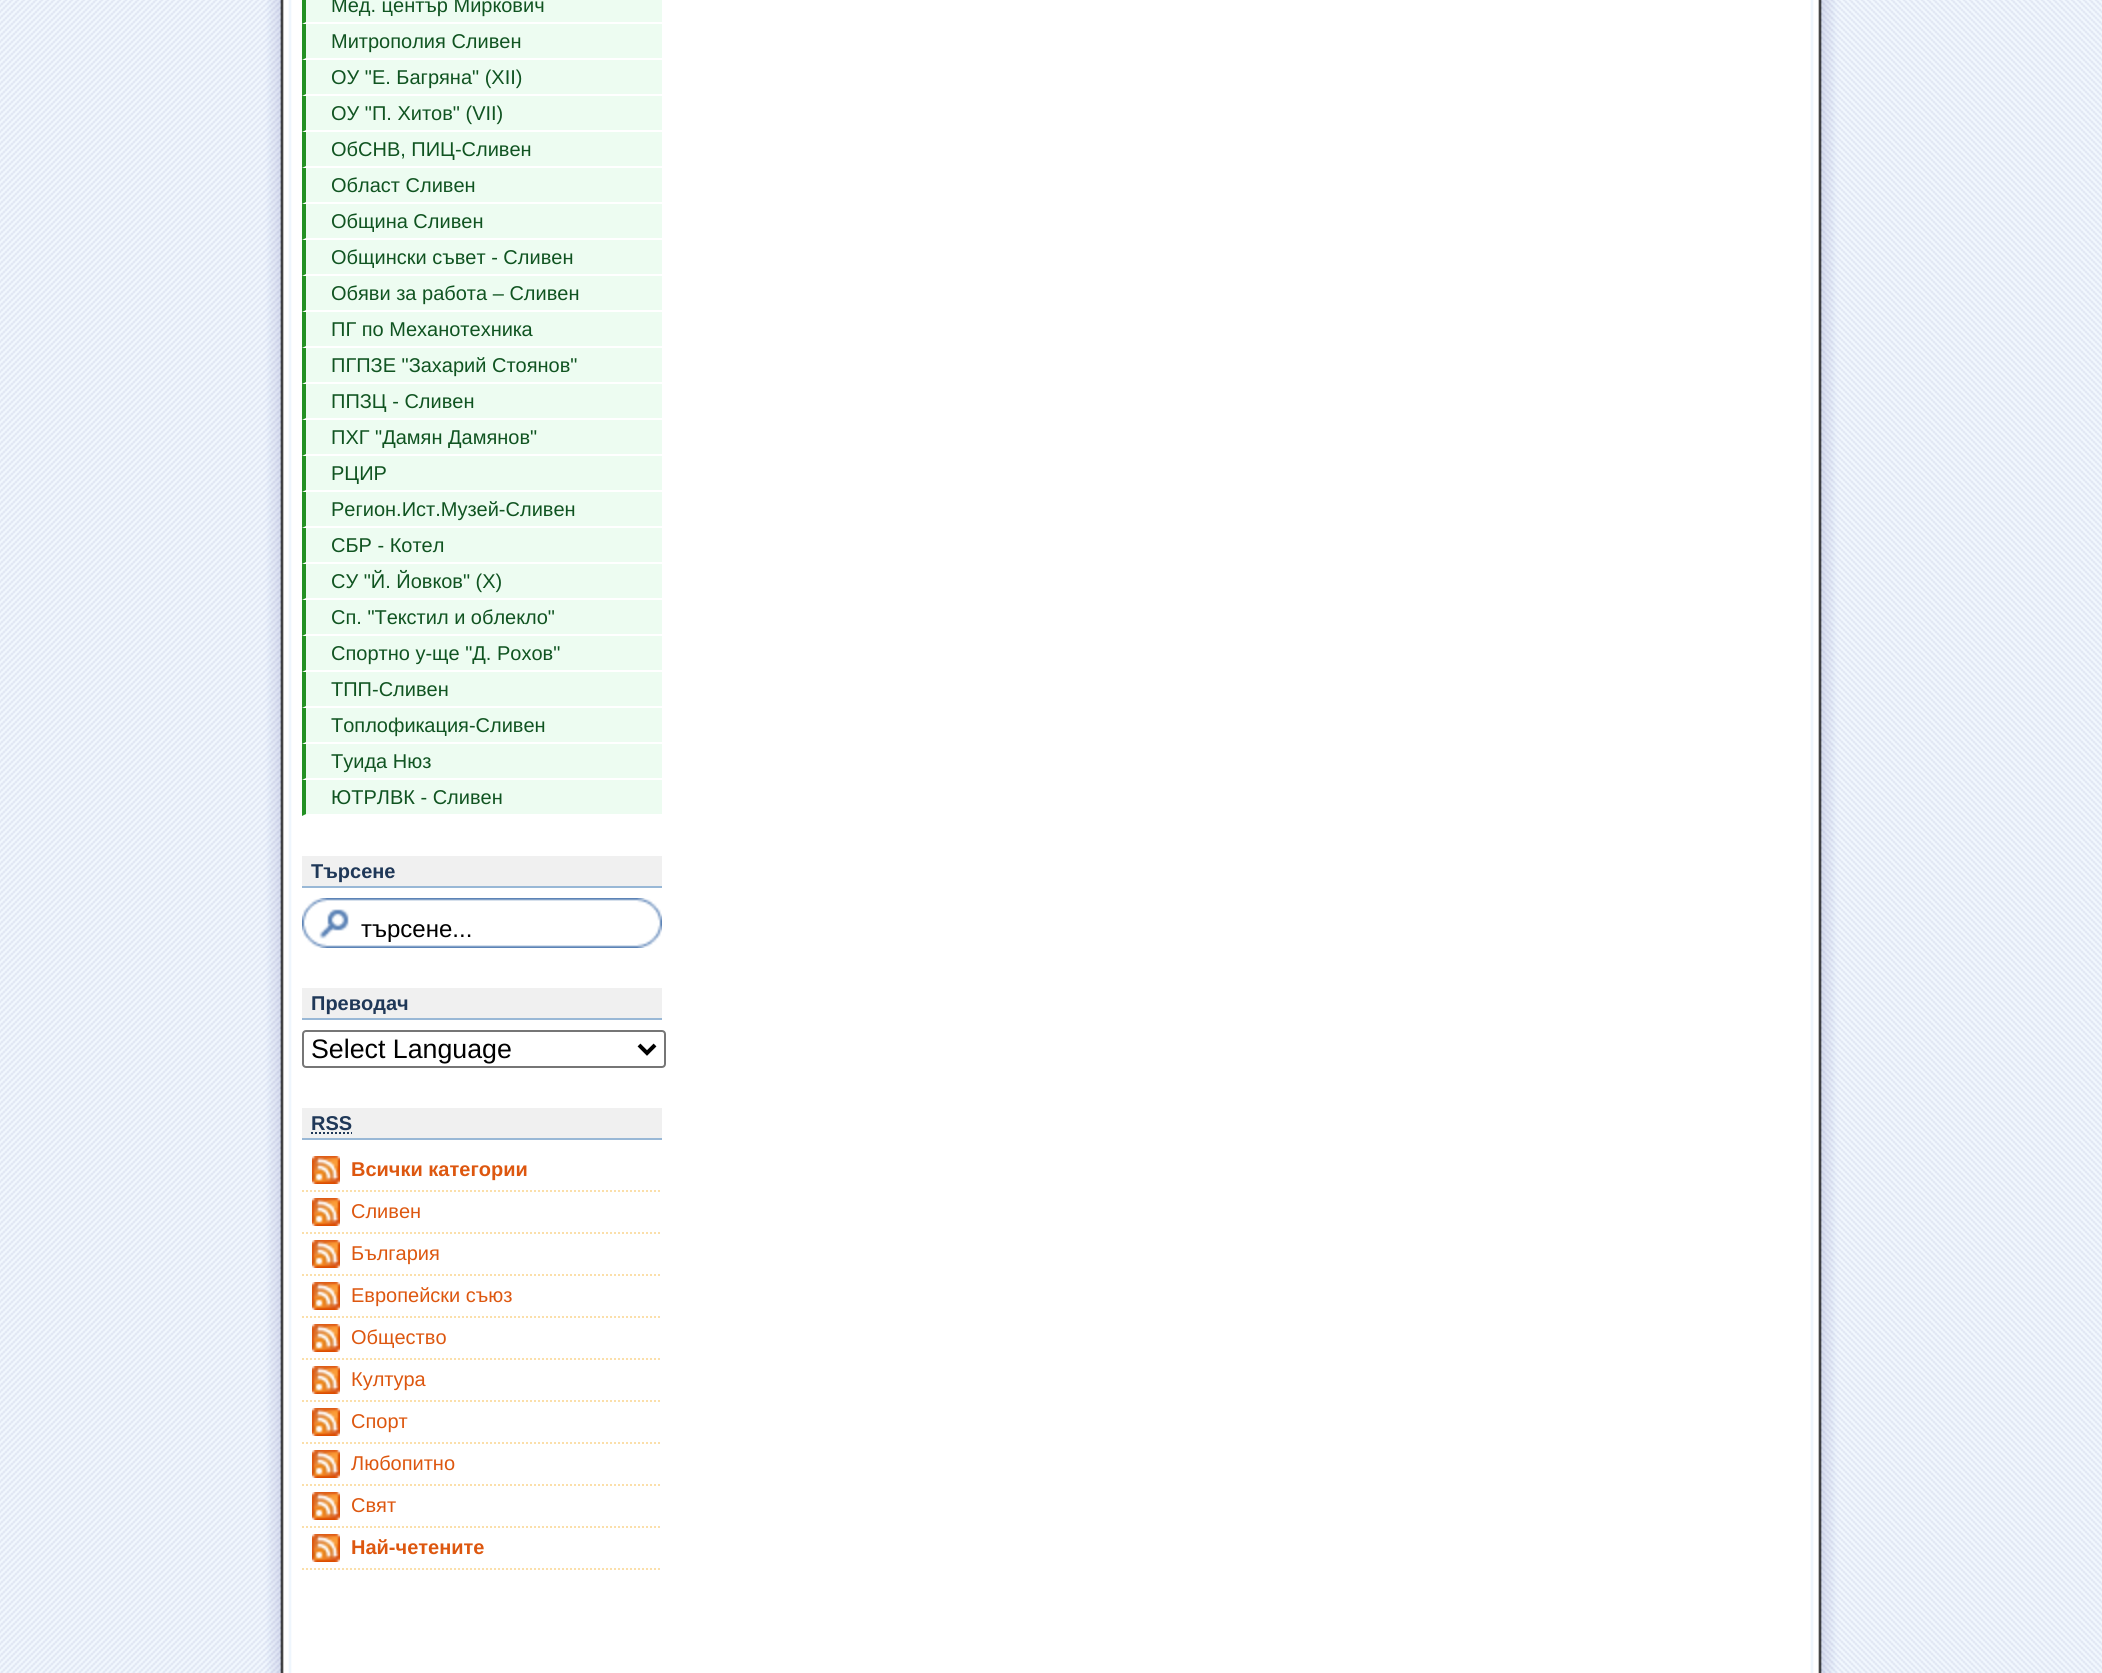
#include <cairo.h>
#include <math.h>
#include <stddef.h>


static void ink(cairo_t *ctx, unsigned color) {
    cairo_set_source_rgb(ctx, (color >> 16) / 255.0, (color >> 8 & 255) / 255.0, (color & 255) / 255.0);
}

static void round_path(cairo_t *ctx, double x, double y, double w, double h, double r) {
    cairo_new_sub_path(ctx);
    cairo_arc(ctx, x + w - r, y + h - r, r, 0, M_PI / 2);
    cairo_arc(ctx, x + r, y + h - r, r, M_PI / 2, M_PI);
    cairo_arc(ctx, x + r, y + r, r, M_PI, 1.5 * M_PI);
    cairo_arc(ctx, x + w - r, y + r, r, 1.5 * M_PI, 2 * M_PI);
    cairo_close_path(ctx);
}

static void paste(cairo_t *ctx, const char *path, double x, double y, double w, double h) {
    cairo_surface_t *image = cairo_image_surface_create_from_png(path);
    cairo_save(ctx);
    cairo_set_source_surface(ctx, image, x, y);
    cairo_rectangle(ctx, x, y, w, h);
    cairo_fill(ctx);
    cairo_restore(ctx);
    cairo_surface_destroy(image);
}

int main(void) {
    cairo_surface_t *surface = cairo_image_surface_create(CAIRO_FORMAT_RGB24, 2102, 1673);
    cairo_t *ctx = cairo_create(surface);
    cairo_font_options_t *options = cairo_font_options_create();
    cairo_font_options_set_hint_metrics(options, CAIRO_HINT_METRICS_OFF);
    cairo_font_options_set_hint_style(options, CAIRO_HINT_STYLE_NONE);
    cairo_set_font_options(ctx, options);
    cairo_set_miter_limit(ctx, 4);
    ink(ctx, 0xFFFFFF);
    cairo_paint(ctx);
    paste(ctx, "media/1.png", 0, 0, 2102, 1673);
    ink(ctx, 0xEDFCF1);
    cairo_rectangle(ctx, 302, 0, 360, 816);
    cairo_fill(ctx);
    ink(ctx, 0xFFFFFF);
    cairo_new_path(ctx);
    cairo_move_to(ctx, 662, 24);
    cairo_line_to(ctx, 302, 24);
    cairo_line_to(ctx, 306, 22);
    cairo_line_to(ctx, 662, 22);
    cairo_close_path(ctx);
    cairo_fill(ctx);
    ink(ctx, 0x239124);
    cairo_new_path(ctx);
    cairo_move_to(ctx, 302, 24);
    cairo_line_to(ctx, 302, -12);
    cairo_line_to(ctx, 306, -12);
    cairo_line_to(ctx, 306, 22);
    cairo_close_path(ctx);
    cairo_fill(ctx);
    cairo_select_font_face(ctx, "Liberation Sans", CAIRO_FONT_SLANT_NORMAL, CAIRO_FONT_WEIGHT_NORMAL);
    cairo_set_font_size(ctx, 20);
    ink(ctx, 0x105421);
    cairo_move_to(ctx, 331, 12);
    cairo_show_text(ctx, "Мед. център Миркович");
    ink(ctx, 0xFFFFFF);
    cairo_new_path(ctx);
    cairo_move_to(ctx, 662, 60);
    cairo_line_to(ctx, 302, 60);
    cairo_line_to(ctx, 306, 58);
    cairo_line_to(ctx, 662, 58);
    cairo_close_path(ctx);
    cairo_fill(ctx);
    ink(ctx, 0x239124);
    cairo_new_path(ctx);
    cairo_move_to(ctx, 302, 60);
    cairo_line_to(ctx, 302, 24);
    cairo_line_to(ctx, 306, 24);
    cairo_line_to(ctx, 306, 58);
    cairo_close_path(ctx);
    cairo_fill(ctx);
    ink(ctx, 0x105421);
    cairo_move_to(ctx, 331, 48);
    cairo_show_text(ctx, "Митрополия Сливен");
    ink(ctx, 0xFFFFFF);
    cairo_new_path(ctx);
    cairo_move_to(ctx, 662, 96);
    cairo_line_to(ctx, 302, 96);
    cairo_line_to(ctx, 306, 94);
    cairo_line_to(ctx, 662, 94);
    cairo_close_path(ctx);
    cairo_fill(ctx);
    ink(ctx, 0x239124);
    cairo_new_path(ctx);
    cairo_move_to(ctx, 302, 96);
    cairo_line_to(ctx, 302, 60);
    cairo_line_to(ctx, 306, 60);
    cairo_line_to(ctx, 306, 94);
    cairo_close_path(ctx);
    cairo_fill(ctx);
    ink(ctx, 0x105421);
    cairo_move_to(ctx, 331, 84);
    cairo_show_text(ctx, "ОУ \"Е. Багряна\" (XII)");
    ink(ctx, 0xFFFFFF);
    cairo_new_path(ctx);
    cairo_move_to(ctx, 662, 132);
    cairo_line_to(ctx, 302, 132);
    cairo_line_to(ctx, 306, 130);
    cairo_line_to(ctx, 662, 130);
    cairo_close_path(ctx);
    cairo_fill(ctx);
    ink(ctx, 0x239124);
    cairo_new_path(ctx);
    cairo_move_to(ctx, 302, 132);
    cairo_line_to(ctx, 302, 96);
    cairo_line_to(ctx, 306, 96);
    cairo_line_to(ctx, 306, 130);
    cairo_close_path(ctx);
    cairo_fill(ctx);
    ink(ctx, 0x105421);
    cairo_move_to(ctx, 331, 120);
    cairo_show_text(ctx, "ОУ \"П. Хитов\" (VII)");
    ink(ctx, 0xFFFFFF);
    cairo_new_path(ctx);
    cairo_move_to(ctx, 662, 168);
    cairo_line_to(ctx, 302, 168);
    cairo_line_to(ctx, 306, 166);
    cairo_line_to(ctx, 662, 166);
    cairo_close_path(ctx);
    cairo_fill(ctx);
    ink(ctx, 0x239124);
    cairo_new_path(ctx);
    cairo_move_to(ctx, 302, 168);
    cairo_line_to(ctx, 302, 132);
    cairo_line_to(ctx, 306, 132);
    cairo_line_to(ctx, 306, 166);
    cairo_close_path(ctx);
    cairo_fill(ctx);
    ink(ctx, 0x105421);
    cairo_move_to(ctx, 331, 156);
    cairo_show_text(ctx, "ОбСНВ, ПИЦ-Сливен");
    ink(ctx, 0xFFFFFF);
    cairo_new_path(ctx);
    cairo_move_to(ctx, 662, 204);
    cairo_line_to(ctx, 302, 204);
    cairo_line_to(ctx, 306, 202);
    cairo_line_to(ctx, 662, 202);
    cairo_close_path(ctx);
    cairo_fill(ctx);
    ink(ctx, 0x239124);
    cairo_new_path(ctx);
    cairo_move_to(ctx, 302, 204);
    cairo_line_to(ctx, 302, 168);
    cairo_line_to(ctx, 306, 168);
    cairo_line_to(ctx, 306, 202);
    cairo_close_path(ctx);
    cairo_fill(ctx);
    ink(ctx, 0x105421);
    cairo_move_to(ctx, 331, 192);
    cairo_show_text(ctx, "Област Сливен");
    ink(ctx, 0xFFFFFF);
    cairo_new_path(ctx);
    cairo_move_to(ctx, 662, 240);
    cairo_line_to(ctx, 302, 240);
    cairo_line_to(ctx, 306, 238);
    cairo_line_to(ctx, 662, 238);
    cairo_close_path(ctx);
    cairo_fill(ctx);
    ink(ctx, 0x239124);
    cairo_new_path(ctx);
    cairo_move_to(ctx, 302, 240);
    cairo_line_to(ctx, 302, 204);
    cairo_line_to(ctx, 306, 204);
    cairo_line_to(ctx, 306, 238);
    cairo_close_path(ctx);
    cairo_fill(ctx);
    ink(ctx, 0x105421);
    cairo_move_to(ctx, 331, 228);
    cairo_show_text(ctx, "Община Сливен");
    ink(ctx, 0xFFFFFF);
    cairo_new_path(ctx);
    cairo_move_to(ctx, 662, 276);
    cairo_line_to(ctx, 302, 276);
    cairo_line_to(ctx, 306, 274);
    cairo_line_to(ctx, 662, 274);
    cairo_close_path(ctx);
    cairo_fill(ctx);
    ink(ctx, 0x239124);
    cairo_new_path(ctx);
    cairo_move_to(ctx, 302, 276);
    cairo_line_to(ctx, 302, 240);
    cairo_line_to(ctx, 306, 240);
    cairo_line_to(ctx, 306, 274);
    cairo_close_path(ctx);
    cairo_fill(ctx);
    ink(ctx, 0x105421);
    cairo_move_to(ctx, 331, 264);
    cairo_show_text(ctx, "Общински съвет - Сливен");
    ink(ctx, 0xFFFFFF);
    cairo_new_path(ctx);
    cairo_move_to(ctx, 662, 312);
    cairo_line_to(ctx, 302, 312);
    cairo_line_to(ctx, 306, 310);
    cairo_line_to(ctx, 662, 310);
    cairo_close_path(ctx);
    cairo_fill(ctx);
    ink(ctx, 0x239124);
    cairo_new_path(ctx);
    cairo_move_to(ctx, 302, 312);
    cairo_line_to(ctx, 302, 276);
    cairo_line_to(ctx, 306, 276);
    cairo_line_to(ctx, 306, 310);
    cairo_close_path(ctx);
    cairo_fill(ctx);
    ink(ctx, 0x105421);
    cairo_move_to(ctx, 331, 300);
    cairo_show_text(ctx, "Обяви за работа – Сливен");
    ink(ctx, 0xFFFFFF);
    cairo_new_path(ctx);
    cairo_move_to(ctx, 662, 348);
    cairo_line_to(ctx, 302, 348);
    cairo_line_to(ctx, 306, 346);
    cairo_line_to(ctx, 662, 346);
    cairo_close_path(ctx);
    cairo_fill(ctx);
    ink(ctx, 0x239124);
    cairo_new_path(ctx);
    cairo_move_to(ctx, 302, 348);
    cairo_line_to(ctx, 302, 312);
    cairo_line_to(ctx, 306, 312);
    cairo_line_to(ctx, 306, 346);
    cairo_close_path(ctx);
    cairo_fill(ctx);
    ink(ctx, 0x105421);
    cairo_move_to(ctx, 331, 336);
    cairo_show_text(ctx, "ПГ по Механотехника");
    ink(ctx, 0xFFFFFF);
    cairo_new_path(ctx);
    cairo_move_to(ctx, 662, 384);
    cairo_line_to(ctx, 302, 384);
    cairo_line_to(ctx, 306, 382);
    cairo_line_to(ctx, 662, 382);
    cairo_close_path(ctx);
    cairo_fill(ctx);
    ink(ctx, 0x239124);
    cairo_new_path(ctx);
    cairo_move_to(ctx, 302, 384);
    cairo_line_to(ctx, 302, 348);
    cairo_line_to(ctx, 306, 348);
    cairo_line_to(ctx, 306, 382);
    cairo_close_path(ctx);
    cairo_fill(ctx);
    ink(ctx, 0x105421);
    cairo_move_to(ctx, 331, 372);
    cairo_show_text(ctx, "ПГПЗЕ \"Захарий Стоянов\"");
    ink(ctx, 0xFFFFFF);
    cairo_new_path(ctx);
    cairo_move_to(ctx, 662, 420);
    cairo_line_to(ctx, 302, 420);
    cairo_line_to(ctx, 306, 418);
    cairo_line_to(ctx, 662, 418);
    cairo_close_path(ctx);
    cairo_fill(ctx);
    ink(ctx, 0x239124);
    cairo_new_path(ctx);
    cairo_move_to(ctx, 302, 420);
    cairo_line_to(ctx, 302, 384);
    cairo_line_to(ctx, 306, 384);
    cairo_line_to(ctx, 306, 418);
    cairo_close_path(ctx);
    cairo_fill(ctx);
    ink(ctx, 0x105421);
    cairo_move_to(ctx, 331, 408);
    cairo_show_text(ctx, "ППЗЦ - Сливен");
    ink(ctx, 0xFFFFFF);
    cairo_new_path(ctx);
    cairo_move_to(ctx, 662, 456);
    cairo_line_to(ctx, 302, 456);
    cairo_line_to(ctx, 306, 454);
    cairo_line_to(ctx, 662, 454);
    cairo_close_path(ctx);
    cairo_fill(ctx);
    ink(ctx, 0x239124);
    cairo_new_path(ctx);
    cairo_move_to(ctx, 302, 456);
    cairo_line_to(ctx, 302, 420);
    cairo_line_to(ctx, 306, 420);
    cairo_line_to(ctx, 306, 454);
    cairo_close_path(ctx);
    cairo_fill(ctx);
    ink(ctx, 0x105421);
    cairo_move_to(ctx, 331, 444);
    cairo_show_text(ctx, "ПХГ \"Дамян Дамянов\"");
    ink(ctx, 0xFFFFFF);
    cairo_new_path(ctx);
    cairo_move_to(ctx, 662, 492);
    cairo_line_to(ctx, 302, 492);
    cairo_line_to(ctx, 306, 490);
    cairo_line_to(ctx, 662, 490);
    cairo_close_path(ctx);
    cairo_fill(ctx);
    ink(ctx, 0x239124);
    cairo_new_path(ctx);
    cairo_move_to(ctx, 302, 492);
    cairo_line_to(ctx, 302, 456);
    cairo_line_to(ctx, 306, 456);
    cairo_line_to(ctx, 306, 490);
    cairo_close_path(ctx);
    cairo_fill(ctx);
    ink(ctx, 0x105421);
    cairo_move_to(ctx, 331, 480);
    cairo_show_text(ctx, "РЦИР");
    ink(ctx, 0xFFFFFF);
    cairo_new_path(ctx);
    cairo_move_to(ctx, 662, 528);
    cairo_line_to(ctx, 302, 528);
    cairo_line_to(ctx, 306, 526);
    cairo_line_to(ctx, 662, 526);
    cairo_close_path(ctx);
    cairo_fill(ctx);
    ink(ctx, 0x239124);
    cairo_new_path(ctx);
    cairo_move_to(ctx, 302, 528);
    cairo_line_to(ctx, 302, 492);
    cairo_line_to(ctx, 306, 492);
    cairo_line_to(ctx, 306, 526);
    cairo_close_path(ctx);
    cairo_fill(ctx);
    ink(ctx, 0x105421);
    cairo_move_to(ctx, 331, 516);
    cairo_show_text(ctx, "Регион.Ист.Музей-Сливен");
    ink(ctx, 0xFFFFFF);
    cairo_new_path(ctx);
    cairo_move_to(ctx, 662, 564);
    cairo_line_to(ctx, 302, 564);
    cairo_line_to(ctx, 306, 562);
    cairo_line_to(ctx, 662, 562);
    cairo_close_path(ctx);
    cairo_fill(ctx);
    ink(ctx, 0x239124);
    cairo_new_path(ctx);
    cairo_move_to(ctx, 302, 564);
    cairo_line_to(ctx, 302, 528);
    cairo_line_to(ctx, 306, 528);
    cairo_line_to(ctx, 306, 562);
    cairo_close_path(ctx);
    cairo_fill(ctx);
    ink(ctx, 0x105421);
    cairo_move_to(ctx, 331, 552);
    cairo_show_text(ctx, "СБР - Котел");
    ink(ctx, 0xFFFFFF);
    cairo_new_path(ctx);
    cairo_move_to(ctx, 662, 600);
    cairo_line_to(ctx, 302, 600);
    cairo_line_to(ctx, 306, 598);
    cairo_line_to(ctx, 662, 598);
    cairo_close_path(ctx);
    cairo_fill(ctx);
    ink(ctx, 0x239124);
    cairo_new_path(ctx);
    cairo_move_to(ctx, 302, 600);
    cairo_line_to(ctx, 302, 564);
    cairo_line_to(ctx, 306, 564);
    cairo_line_to(ctx, 306, 598);
    cairo_close_path(ctx);
    cairo_fill(ctx);
    ink(ctx, 0x105421);
    cairo_move_to(ctx, 331, 588);
    cairo_show_text(ctx, "СУ \"Й. Йовков\" (X)");
    ink(ctx, 0xFFFFFF);
    cairo_new_path(ctx);
    cairo_move_to(ctx, 662, 636);
    cairo_line_to(ctx, 302, 636);
    cairo_line_to(ctx, 306, 634);
    cairo_line_to(ctx, 662, 634);
    cairo_close_path(ctx);
    cairo_fill(ctx);
    ink(ctx, 0x239124);
    cairo_new_path(ctx);
    cairo_move_to(ctx, 302, 636);
    cairo_line_to(ctx, 302, 600);
    cairo_line_to(ctx, 306, 600);
    cairo_line_to(ctx, 306, 634);
    cairo_close_path(ctx);
    cairo_fill(ctx);
    ink(ctx, 0x105421);
    cairo_move_to(ctx, 331, 624);
    cairo_show_text(ctx, "Сп. \"Текстил и облекло\"");
    ink(ctx, 0xFFFFFF);
    cairo_new_path(ctx);
    cairo_move_to(ctx, 662, 672);
    cairo_line_to(ctx, 302, 672);
    cairo_line_to(ctx, 306, 670);
    cairo_line_to(ctx, 662, 670);
    cairo_close_path(ctx);
    cairo_fill(ctx);
    ink(ctx, 0x239124);
    cairo_new_path(ctx);
    cairo_move_to(ctx, 302, 672);
    cairo_line_to(ctx, 302, 636);
    cairo_line_to(ctx, 306, 636);
    cairo_line_to(ctx, 306, 670);
    cairo_close_path(ctx);
    cairo_fill(ctx);
    ink(ctx, 0x105421);
    cairo_move_to(ctx, 331, 660);
    cairo_show_text(ctx, "Спортно у-ще \"Д. Рохов\"");
    ink(ctx, 0xFFFFFF);
    cairo_new_path(ctx);
    cairo_move_to(ctx, 662, 708);
    cairo_line_to(ctx, 302, 708);
    cairo_line_to(ctx, 306, 706);
    cairo_line_to(ctx, 662, 706);
    cairo_close_path(ctx);
    cairo_fill(ctx);
    ink(ctx, 0x239124);
    cairo_new_path(ctx);
    cairo_move_to(ctx, 302, 708);
    cairo_line_to(ctx, 302, 672);
    cairo_line_to(ctx, 306, 672);
    cairo_line_to(ctx, 306, 706);
    cairo_close_path(ctx);
    cairo_fill(ctx);
    ink(ctx, 0x105421);
    cairo_move_to(ctx, 331, 696);
    cairo_show_text(ctx, "ТПП-Сливен");
    ink(ctx, 0xFFFFFF);
    cairo_new_path(ctx);
    cairo_move_to(ctx, 662, 744);
    cairo_line_to(ctx, 302, 744);
    cairo_line_to(ctx, 306, 742);
    cairo_line_to(ctx, 662, 742);
    cairo_close_path(ctx);
    cairo_fill(ctx);
    ink(ctx, 0x239124);
    cairo_new_path(ctx);
    cairo_move_to(ctx, 302, 744);
    cairo_line_to(ctx, 302, 708);
    cairo_line_to(ctx, 306, 708);
    cairo_line_to(ctx, 306, 742);
    cairo_close_path(ctx);
    cairo_fill(ctx);
    ink(ctx, 0x105421);
    cairo_move_to(ctx, 331, 732);
    cairo_show_text(ctx, "Топлофикация-Сливен");
    ink(ctx, 0xFFFFFF);
    cairo_new_path(ctx);
    cairo_move_to(ctx, 662, 780);
    cairo_line_to(ctx, 302, 780);
    cairo_line_to(ctx, 306, 778);
    cairo_line_to(ctx, 662, 778);
    cairo_close_path(ctx);
    cairo_fill(ctx);
    ink(ctx, 0x239124);
    cairo_new_path(ctx);
    cairo_move_to(ctx, 302, 780);
    cairo_line_to(ctx, 302, 744);
    cairo_line_to(ctx, 306, 744);
    cairo_line_to(ctx, 306, 778);
    cairo_close_path(ctx);
    cairo_fill(ctx);
    ink(ctx, 0x105421);
    cairo_move_to(ctx, 331, 768);
    cairo_show_text(ctx, "Туида Нюз");
    ink(ctx, 0xFFFFFF);
    cairo_new_path(ctx);
    cairo_move_to(ctx, 662, 816);
    cairo_line_to(ctx, 302, 816);
    cairo_line_to(ctx, 306, 814);
    cairo_line_to(ctx, 662, 814);
    cairo_close_path(ctx);
    cairo_fill(ctx);
    ink(ctx, 0x239124);
    cairo_new_path(ctx);
    cairo_move_to(ctx, 302, 816);
    cairo_line_to(ctx, 302, 780);
    cairo_line_to(ctx, 306, 780);
    cairo_line_to(ctx, 306, 814);
    cairo_close_path(ctx);
    cairo_fill(ctx);
    ink(ctx, 0x105421);
    cairo_move_to(ctx, 331, 804);
    cairo_show_text(ctx, "ЮТРЛВК - Сливен");
    ink(ctx, 0xF0F0F0);
    cairo_rectangle(ctx, 302, 856, 360, 30);
    cairo_fill(ctx);
    ink(ctx, 0x99B8D6);
    cairo_rectangle(ctx, 302, 886, 360, 2);
    cairo_fill(ctx);
    cairo_select_font_face(ctx, "Liberation Sans", CAIRO_FONT_SLANT_NORMAL, CAIRO_FONT_WEIGHT_BOLD);
    ink(ctx, 0x1F3858);
    cairo_move_to(ctx, 311, 878);
    cairo_show_text(ctx, "Търсене");
    paste(ctx, "media/2.png", 302, 898, 360, 50);
    cairo_select_font_face(ctx, "Liberation Sans", CAIRO_FONT_SLANT_NORMAL, CAIRO_FONT_WEIGHT_NORMAL);
    cairo_set_font_size(ctx, 24);
    ink(ctx, 0x000000);
    cairo_move_to(ctx, 361, 937);
    cairo_show_text(ctx, "търсене...");
    ink(ctx, 0xF0F0F0);
    cairo_rectangle(ctx, 302, 988, 360, 30);
    cairo_fill(ctx);
    ink(ctx, 0x99B8D6);
    cairo_rectangle(ctx, 302, 1018, 360, 2);
    cairo_fill(ctx);
    cairo_select_font_face(ctx, "Liberation Sans", CAIRO_FONT_SLANT_NORMAL, CAIRO_FONT_WEIGHT_BOLD);
    cairo_set_font_size(ctx, 20);
    ink(ctx, 0x1F3858);
    cairo_move_to(ctx, 311, 1010);
    cairo_show_text(ctx, "Преводач");
    round_path(ctx, 303, 1031, 362, 36, 3);
    ink(ctx, 0x767676);
    cairo_stroke(ctx);
    cairo_new_path(ctx);
    cairo_move_to(ctx, 639, 1045);
    cairo_line_to(ctx, 647, 1053);
    cairo_line_to(ctx, 655, 1045);
    ink(ctx, 0x000000);
    cairo_set_line_width(ctx, 4);
    cairo_stroke(ctx);
    cairo_select_font_face(ctx, "Liberation Sans", CAIRO_FONT_SLANT_NORMAL, CAIRO_FONT_WEIGHT_NORMAL);
    cairo_set_font_size(ctx, 26.75);
    cairo_move_to(ctx, 311, 1058);
    cairo_show_text(ctx, "Select Language");
    ink(ctx, 0xF0F0F0);
    cairo_rectangle(ctx, 302, 1108, 360, 30);
    cairo_fill(ctx);
    ink(ctx, 0x99B8D6);
    cairo_rectangle(ctx, 302, 1138, 360, 2);
    cairo_fill(ctx);
    cairo_select_font_face(ctx, "Liberation Sans", CAIRO_FONT_SLANT_NORMAL, CAIRO_FONT_WEIGHT_BOLD);
    cairo_set_font_size(ctx, 20);
    ink(ctx, 0x1F3858);
    cairo_move_to(ctx, 311, 1130);
    cairo_show_text(ctx, "RSS");
    cairo_new_path(ctx);
    cairo_move_to(ctx, 311, 1133);
    cairo_line_to(ctx, 352, 1133);
    cairo_set_line_width(ctx, 2);
    cairo_set_dash(ctx, (double[]){2, 2}, 2, 0);
    cairo_stroke(ctx);
    paste(ctx, "media/3.png", 312, 1156, 28, 28);
    cairo_new_path(ctx);
    cairo_move_to(ctx, 302, 1191);
    cairo_line_to(ctx, 662, 1191);
    ink(ctx, 0xFBDFAA);
    cairo_stroke(ctx);
    ink(ctx, 0xDD570F);
    cairo_move_to(ctx, 351, 1176);
    cairo_show_text(ctx, "Всички категории");
    paste(ctx, "media/3.png", 312, 1198, 28, 28);
    cairo_new_path(ctx);
    cairo_move_to(ctx, 302, 1233);
    cairo_line_to(ctx, 662, 1233);
    ink(ctx, 0xFBDFAA);
    cairo_stroke(ctx);
    cairo_select_font_face(ctx, "Liberation Sans", CAIRO_FONT_SLANT_NORMAL, CAIRO_FONT_WEIGHT_NORMAL);
    ink(ctx, 0xDD570F);
    cairo_move_to(ctx, 351, 1218);
    cairo_show_text(ctx, "Сливен");
    paste(ctx, "media/3.png", 312, 1240, 28, 28);
    cairo_new_path(ctx);
    cairo_move_to(ctx, 302, 1275);
    cairo_line_to(ctx, 662, 1275);
    ink(ctx, 0xFBDFAA);
    cairo_stroke(ctx);
    ink(ctx, 0xDD570F);
    cairo_move_to(ctx, 351, 1260);
    cairo_show_text(ctx, "България");
    paste(ctx, "media/3.png", 312, 1282, 28, 28);
    cairo_new_path(ctx);
    cairo_move_to(ctx, 302, 1317);
    cairo_line_to(ctx, 662, 1317);
    ink(ctx, 0xFBDFAA);
    cairo_stroke(ctx);
    ink(ctx, 0xDD570F);
    cairo_move_to(ctx, 351, 1302);
    cairo_show_text(ctx, "Европейски съюз");
    paste(ctx, "media/3.png", 312, 1324, 28, 28);
    cairo_new_path(ctx);
    cairo_move_to(ctx, 302, 1359);
    cairo_line_to(ctx, 662, 1359);
    ink(ctx, 0xFBDFAA);
    cairo_stroke(ctx);
    ink(ctx, 0xDD570F);
    cairo_move_to(ctx, 351, 1344);
    cairo_show_text(ctx, "Общество");
    paste(ctx, "media/3.png", 312, 1366, 28, 28);
    cairo_new_path(ctx);
    cairo_move_to(ctx, 302, 1401);
    cairo_line_to(ctx, 662, 1401);
    ink(ctx, 0xFBDFAA);
    cairo_stroke(ctx);
    ink(ctx, 0xDD570F);
    cairo_move_to(ctx, 351, 1386);
    cairo_show_text(ctx, "Култура");
    paste(ctx, "media/3.png", 312, 1408, 28, 28);
    cairo_new_path(ctx);
    cairo_move_to(ctx, 302, 1443);
    cairo_line_to(ctx, 662, 1443);
    ink(ctx, 0xFBDFAA);
    cairo_stroke(ctx);
    ink(ctx, 0xDD570F);
    cairo_move_to(ctx, 351, 1428);
    cairo_show_text(ctx, "Спорт");
    paste(ctx, "media/3.png", 312, 1450, 28, 28);
    cairo_new_path(ctx);
    cairo_move_to(ctx, 302, 1485);
    cairo_line_to(ctx, 662, 1485);
    ink(ctx, 0xFBDFAA);
    cairo_stroke(ctx);
    ink(ctx, 0xDD570F);
    cairo_move_to(ctx, 351, 1470);
    cairo_show_text(ctx, "Любопитно");
    paste(ctx, "media/3.png", 312, 1492, 28, 28);
    cairo_new_path(ctx);
    cairo_move_to(ctx, 302, 1527);
    cairo_line_to(ctx, 662, 1527);
    ink(ctx, 0xFBDFAA);
    cairo_stroke(ctx);
    ink(ctx, 0xDD570F);
    cairo_move_to(ctx, 351, 1512);
    cairo_show_text(ctx, "Свят");
    paste(ctx, "media/3.png", 312, 1534, 28, 28);
    cairo_new_path(ctx);
    cairo_move_to(ctx, 302, 1569);
    cairo_line_to(ctx, 662, 1569);
    ink(ctx, 0xFBDFAA);
    cairo_stroke(ctx);
    cairo_select_font_face(ctx, "Liberation Sans", CAIRO_FONT_SLANT_NORMAL, CAIRO_FONT_WEIGHT_BOLD);
    ink(ctx, 0xDD570F);
    cairo_move_to(ctx, 351, 1554);
    cairo_show_text(ctx, "Най-четените");
    cairo_surface_write_to_png(surface, "image.png");
    cairo_font_options_destroy(options);
    cairo_destroy(ctx);
    cairo_surface_destroy(surface);
    return 0;
}
